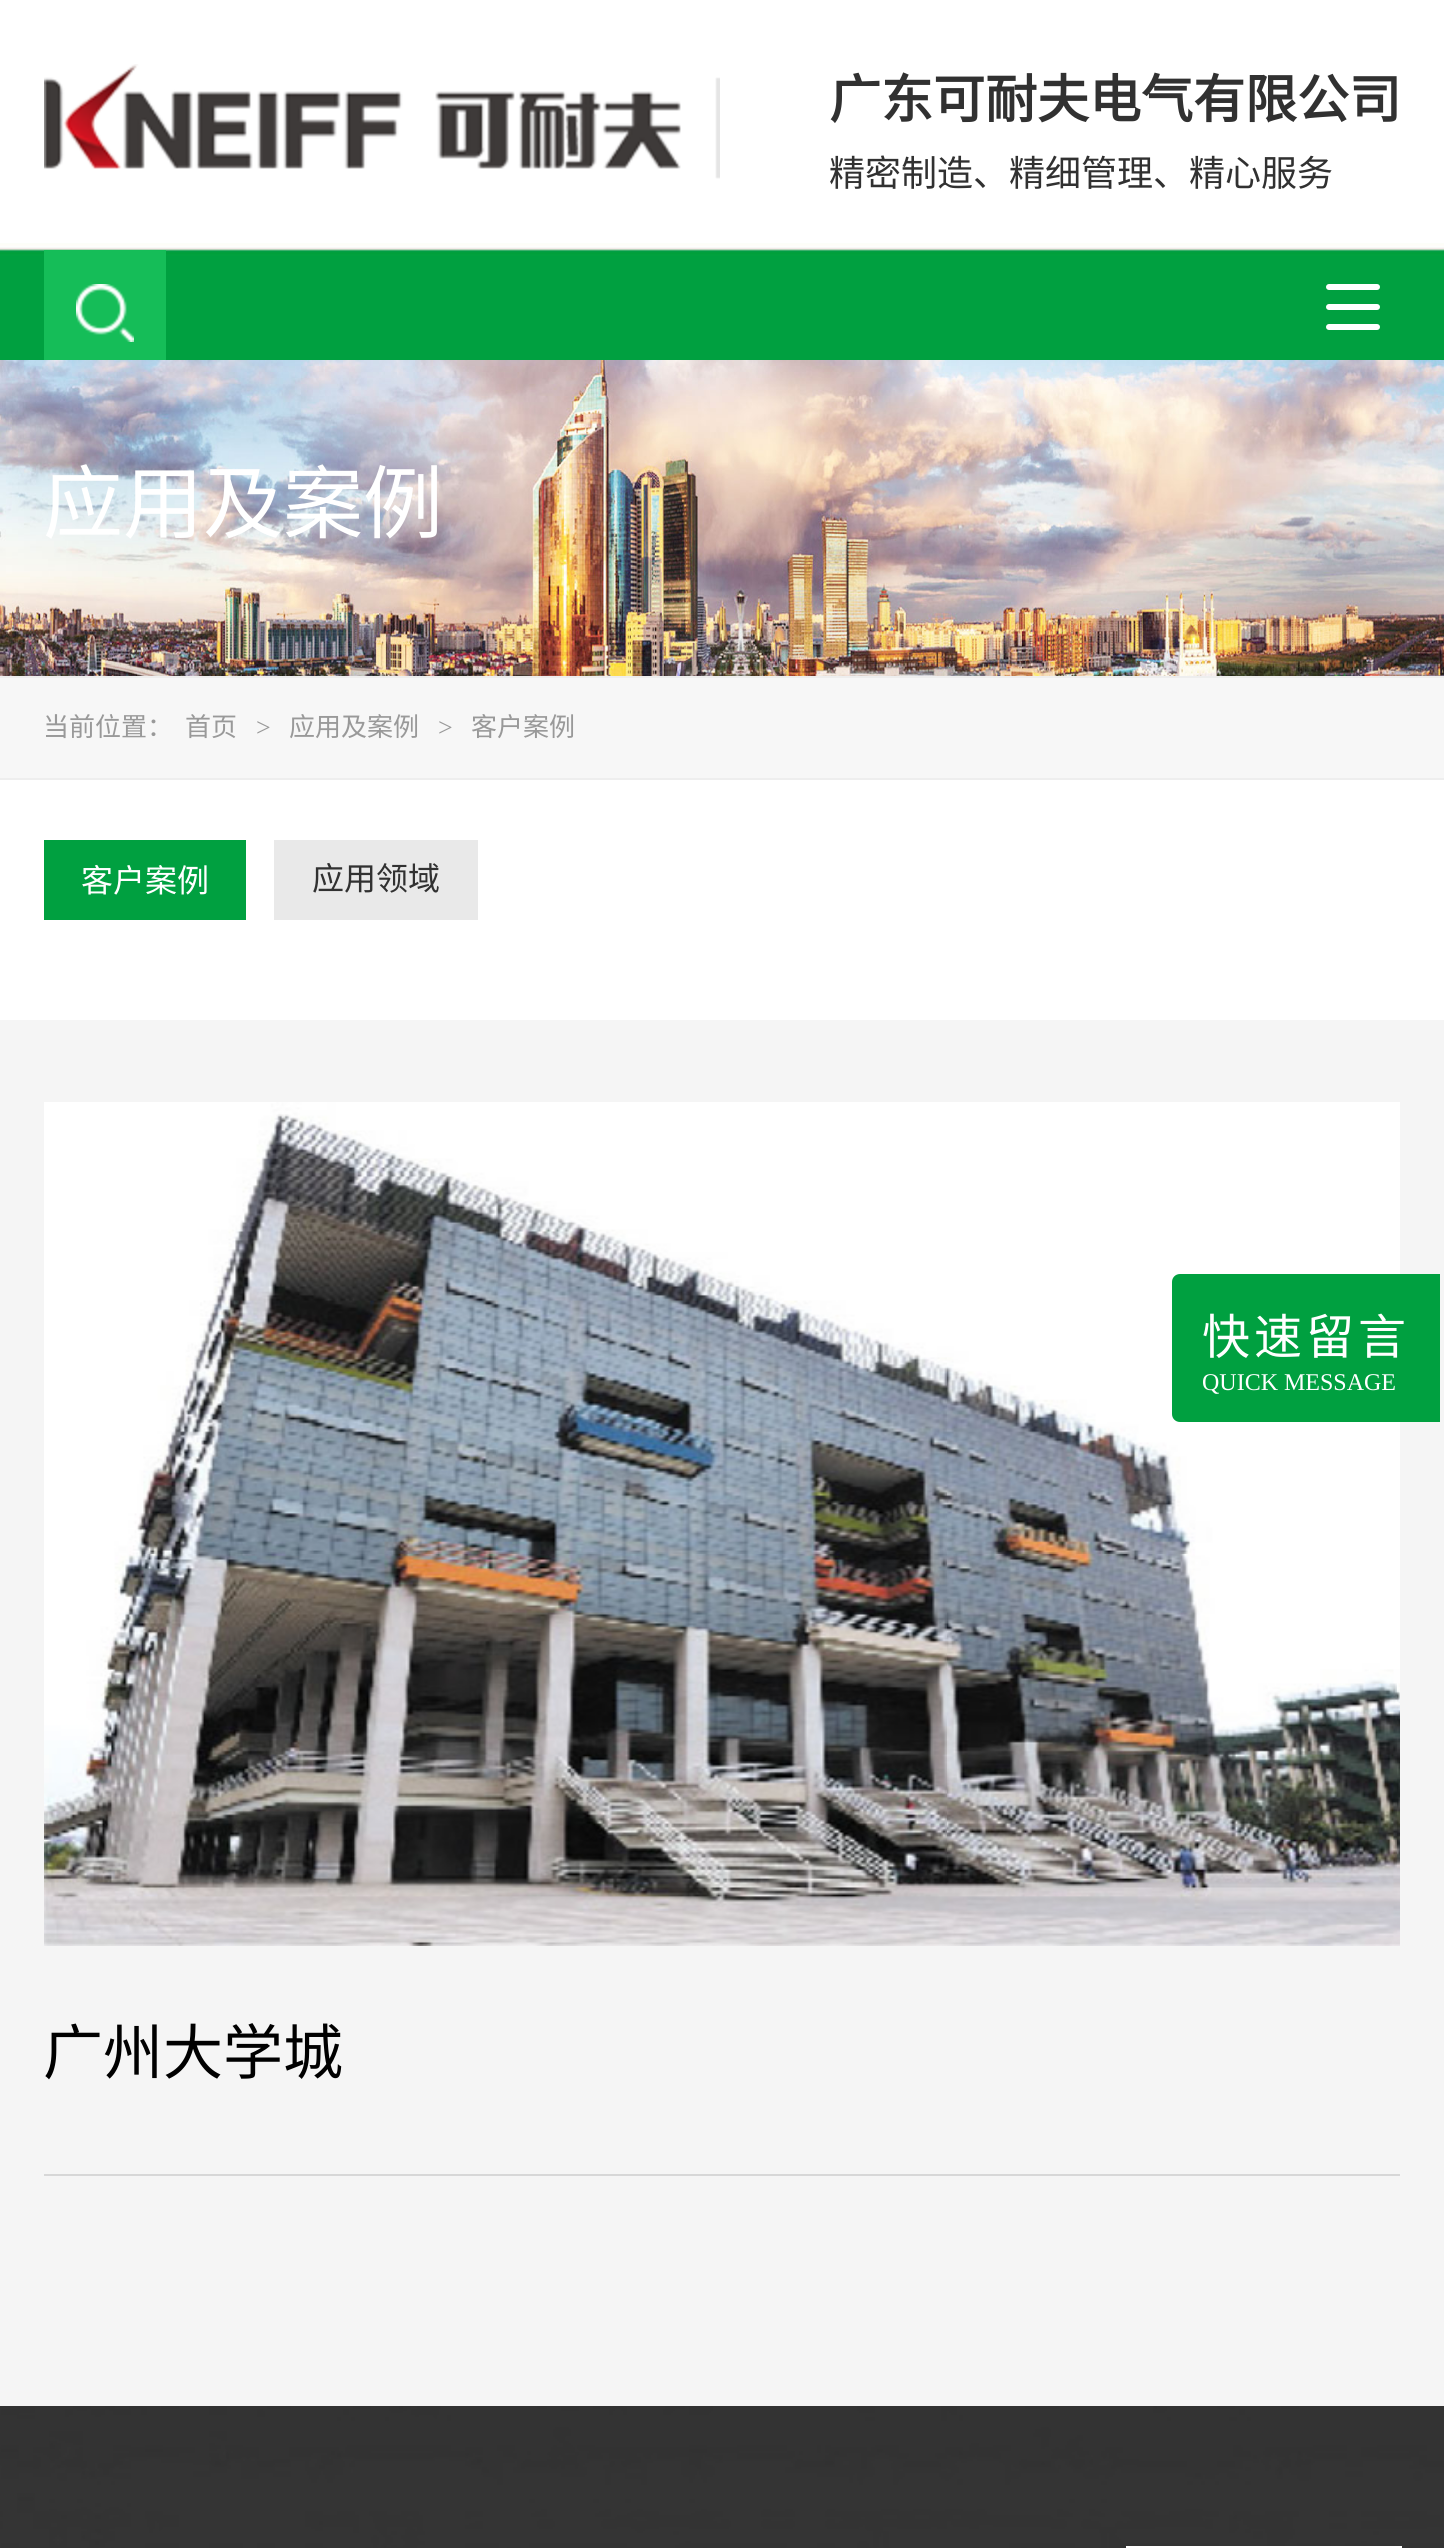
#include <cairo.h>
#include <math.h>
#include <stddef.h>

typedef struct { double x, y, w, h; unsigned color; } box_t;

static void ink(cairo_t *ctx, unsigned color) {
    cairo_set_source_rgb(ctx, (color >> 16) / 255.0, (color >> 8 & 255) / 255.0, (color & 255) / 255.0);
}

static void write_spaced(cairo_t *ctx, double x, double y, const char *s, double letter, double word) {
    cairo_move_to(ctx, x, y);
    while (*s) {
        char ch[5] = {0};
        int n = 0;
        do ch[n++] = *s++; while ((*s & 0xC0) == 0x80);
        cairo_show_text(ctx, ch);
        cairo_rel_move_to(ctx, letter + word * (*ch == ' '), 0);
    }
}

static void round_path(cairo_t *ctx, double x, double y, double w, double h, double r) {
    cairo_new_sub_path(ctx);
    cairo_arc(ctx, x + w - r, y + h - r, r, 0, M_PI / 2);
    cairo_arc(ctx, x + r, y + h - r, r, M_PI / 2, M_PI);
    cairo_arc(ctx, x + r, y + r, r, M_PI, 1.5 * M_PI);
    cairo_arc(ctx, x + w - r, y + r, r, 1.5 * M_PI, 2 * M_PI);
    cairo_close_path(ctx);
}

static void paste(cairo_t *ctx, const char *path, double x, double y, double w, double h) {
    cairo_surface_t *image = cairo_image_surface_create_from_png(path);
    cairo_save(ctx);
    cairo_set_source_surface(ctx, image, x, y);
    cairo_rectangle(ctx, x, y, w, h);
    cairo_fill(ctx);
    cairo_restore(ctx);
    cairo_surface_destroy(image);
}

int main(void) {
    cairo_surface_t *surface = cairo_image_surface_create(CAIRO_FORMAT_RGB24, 1444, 2548);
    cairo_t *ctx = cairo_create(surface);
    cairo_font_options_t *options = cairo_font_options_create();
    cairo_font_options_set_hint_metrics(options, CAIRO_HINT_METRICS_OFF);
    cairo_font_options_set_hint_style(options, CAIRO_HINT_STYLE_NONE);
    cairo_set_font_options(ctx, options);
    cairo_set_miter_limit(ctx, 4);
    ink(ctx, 0xFFFFFF);
    cairo_paint(ctx);
    paste(ctx, "media/1.png", 0, 243, 1444, 117);
    paste(ctx, "media/2.png", 44, 64, 676, 115);
    cairo_select_font_face(ctx, "Noto Sans CJK SC", CAIRO_FONT_SLANT_NORMAL, CAIRO_FONT_WEIGHT_BOLD);
    cairo_set_font_size(ctx, 52);
    ink(ctx, 0x313131);
    cairo_move_to(ctx, 829, 118);
    cairo_show_text(ctx, "广东可耐夫电气有限公司");
    cairo_select_font_face(ctx, "Noto Sans CJK SC", CAIRO_FONT_SLANT_NORMAL, CAIRO_FONT_WEIGHT_NORMAL);
    cairo_set_font_size(ctx, 36);
    cairo_move_to(ctx, 829, 186);
    cairo_show_text(ctx, "精密制造、精细管理、精心服务");
    ink(ctx, 0x15BD58);
    cairo_rectangle(ctx, 44, 250, 122, 110);
    cairo_fill(ctx);
    paste(ctx, "media/3.png", 76, 284, 58, 58);
    ink(ctx, 0xFFFFFF);
    round_path(ctx, 1326, 284, 54, 6, 3);
    cairo_fill(ctx);
    round_path(ctx, 1326, 304, 54, 6, 3);
    cairo_fill(ctx);
    round_path(ctx, 1326, 324, 54, 6, 3);
    cairo_fill(ctx);
    paste(ctx, "media/4.png", 0, 360, 1444, 316);
    cairo_set_font_size(ctx, 80);
    cairo_move_to(ctx, 43, 532);
    cairo_show_text(ctx, "应用及案例");
    {
        static const box_t items[] = {
            {0, 678, 1444, 100, 0xF7F7F7},
            {0, 676, 1444, 2, 0xEEEEEE},
            {0, 778, 1444, 2, 0xEEEEEE},
        };
        for (size_t i = 0; i < sizeof items / sizeof *items; i++) {
            ink(ctx, items[i].color);
            cairo_rectangle(ctx, items[i].x, items[i].y, items[i].w, items[i].h);
            cairo_fill(ctx);
        }
    }
    cairo_set_font_size(ctx, 26);
    ink(ctx, 0x999999);
    cairo_move_to(ctx, 43, 736);
    cairo_show_text(ctx, "当前位置：");
    cairo_move_to(ctx, 185, 736);
    cairo_show_text(ctx, "首页");
    cairo_select_font_face(ctx, "Liberation Serif", CAIRO_FONT_SLANT_NORMAL, CAIRO_FONT_WEIGHT_NORMAL);
    cairo_move_to(ctx, 256, 736);
    cairo_show_text(ctx, ">");
    cairo_select_font_face(ctx, "Noto Sans CJK SC", CAIRO_FONT_SLANT_NORMAL, CAIRO_FONT_WEIGHT_NORMAL);
    cairo_move_to(ctx, 289, 736);
    cairo_show_text(ctx, "应用及案例");
    cairo_select_font_face(ctx, "Liberation Serif", CAIRO_FONT_SLANT_NORMAL, CAIRO_FONT_WEIGHT_NORMAL);
    cairo_move_to(ctx, 438, 736);
    cairo_show_text(ctx, ">");
    cairo_select_font_face(ctx, "Noto Sans CJK SC", CAIRO_FONT_SLANT_NORMAL, CAIRO_FONT_WEIGHT_NORMAL);
    cairo_move_to(ctx, 471, 736);
    cairo_show_text(ctx, "客户案例");
    ink(ctx, 0x00A040);
    cairo_rectangle(ctx, 44, 840, 202, 80);
    cairo_fill(ctx);
    cairo_set_font_size(ctx, 32);
    ink(ctx, 0xFFFFFF);
    cairo_move_to(ctx, 81, 892);
    cairo_show_text(ctx, "客户案例");
    ink(ctx, 0xE9E9E9);
    cairo_rectangle(ctx, 274, 840, 204, 80);
    cairo_fill(ctx);
    ink(ctx, 0x313131);
    cairo_move_to(ctx, 312, 890);
    cairo_show_text(ctx, "应用领域");
    ink(ctx, 0xF5F5F5);
    cairo_rectangle(ctx, 0, 1020, 1444, 1386);
    cairo_fill(ctx);
    paste(ctx, "media/5.png", 44, 1102, 1356, 844);
    ink(ctx, 0x00A040);
    cairo_new_path(ctx);
    cairo_move_to(ctx, 1180, 1274);
    cairo_line_to(ctx, 1440, 1274);
    cairo_line_to(ctx, 1440, 1422);
    cairo_line_to(ctx, 1180, 1422);
    cairo_curve_to(ctx, 1175.5, 1422, 1172, 1418.5, 1172, 1414);
    cairo_line_to(ctx, 1172, 1282);
    cairo_curve_to(ctx, 1172, 1277.5, 1175.5, 1274, 1180, 1274);
    cairo_close_path(ctx);
    cairo_fill(ctx);
    cairo_set_font_size(ctx, 48);
    ink(ctx, 0xFFFFFF);
    write_spaced(ctx, 1202, 1354, "快速留言", 4, 0);
    cairo_select_font_face(ctx, "Liberation Serif", CAIRO_FONT_SLANT_NORMAL, CAIRO_FONT_WEIGHT_NORMAL);
    cairo_set_font_size(ctx, 24);
    cairo_move_to(ctx, 1202, 1390);
    cairo_show_text(ctx, "QUICK MESSAGE");
    ink(ctx, 0xD7D7D7);
    cairo_rectangle(ctx, 44, 2174, 1356, 2);
    cairo_fill(ctx);
    cairo_select_font_face(ctx, "Noto Sans CJK SC", CAIRO_FONT_SLANT_NORMAL, CAIRO_FONT_WEIGHT_NORMAL);
    cairo_set_font_size(ctx, 60);
    ink(ctx, 0x000000);
    cairo_move_to(ctx, 43, 2074);
    cairo_show_text(ctx, "广州大学城");
    paste(ctx, "media/6.png", 0, 2406, 1444, 142);
    ink(ctx, 0xFFFFFF);
    cairo_rectangle(ctx, 1126, 2546, 276, 2);
    cairo_fill(ctx);
    cairo_surface_write_to_png(surface, "image.png");
    cairo_font_options_destroy(options);
    cairo_destroy(ctx);
    cairo_surface_destroy(surface);
    return 0;
}
